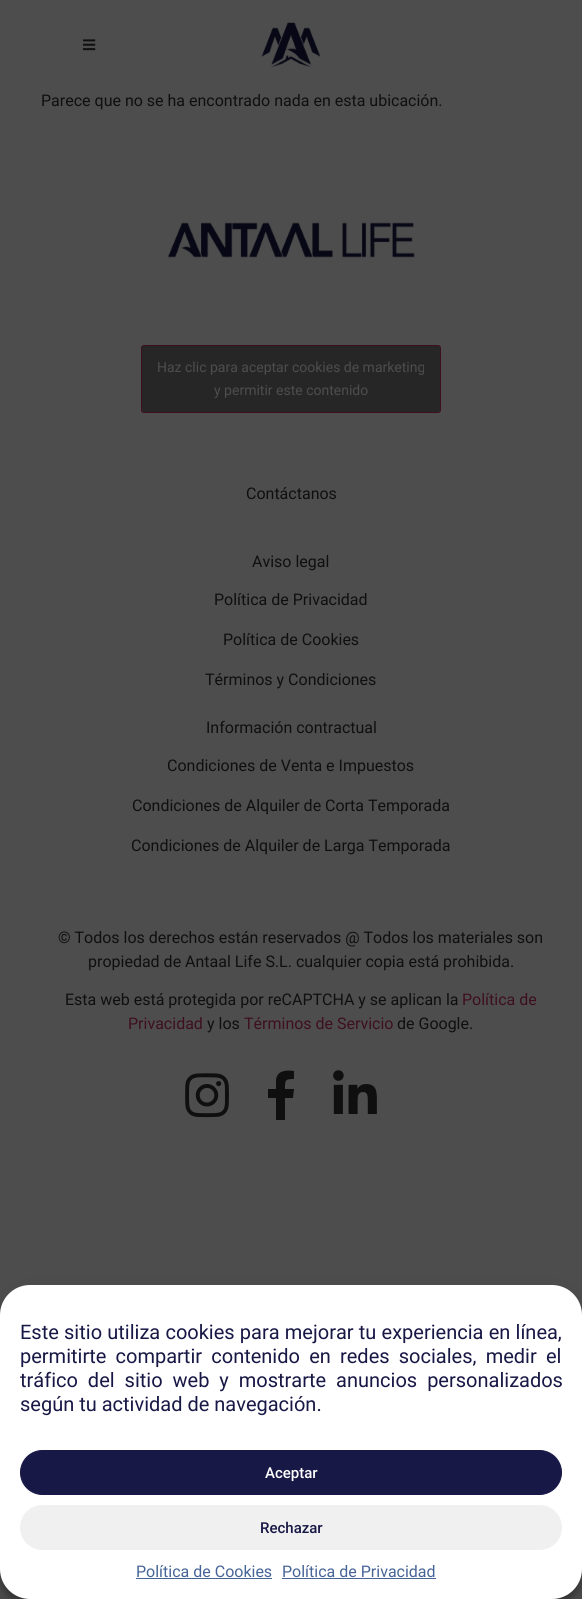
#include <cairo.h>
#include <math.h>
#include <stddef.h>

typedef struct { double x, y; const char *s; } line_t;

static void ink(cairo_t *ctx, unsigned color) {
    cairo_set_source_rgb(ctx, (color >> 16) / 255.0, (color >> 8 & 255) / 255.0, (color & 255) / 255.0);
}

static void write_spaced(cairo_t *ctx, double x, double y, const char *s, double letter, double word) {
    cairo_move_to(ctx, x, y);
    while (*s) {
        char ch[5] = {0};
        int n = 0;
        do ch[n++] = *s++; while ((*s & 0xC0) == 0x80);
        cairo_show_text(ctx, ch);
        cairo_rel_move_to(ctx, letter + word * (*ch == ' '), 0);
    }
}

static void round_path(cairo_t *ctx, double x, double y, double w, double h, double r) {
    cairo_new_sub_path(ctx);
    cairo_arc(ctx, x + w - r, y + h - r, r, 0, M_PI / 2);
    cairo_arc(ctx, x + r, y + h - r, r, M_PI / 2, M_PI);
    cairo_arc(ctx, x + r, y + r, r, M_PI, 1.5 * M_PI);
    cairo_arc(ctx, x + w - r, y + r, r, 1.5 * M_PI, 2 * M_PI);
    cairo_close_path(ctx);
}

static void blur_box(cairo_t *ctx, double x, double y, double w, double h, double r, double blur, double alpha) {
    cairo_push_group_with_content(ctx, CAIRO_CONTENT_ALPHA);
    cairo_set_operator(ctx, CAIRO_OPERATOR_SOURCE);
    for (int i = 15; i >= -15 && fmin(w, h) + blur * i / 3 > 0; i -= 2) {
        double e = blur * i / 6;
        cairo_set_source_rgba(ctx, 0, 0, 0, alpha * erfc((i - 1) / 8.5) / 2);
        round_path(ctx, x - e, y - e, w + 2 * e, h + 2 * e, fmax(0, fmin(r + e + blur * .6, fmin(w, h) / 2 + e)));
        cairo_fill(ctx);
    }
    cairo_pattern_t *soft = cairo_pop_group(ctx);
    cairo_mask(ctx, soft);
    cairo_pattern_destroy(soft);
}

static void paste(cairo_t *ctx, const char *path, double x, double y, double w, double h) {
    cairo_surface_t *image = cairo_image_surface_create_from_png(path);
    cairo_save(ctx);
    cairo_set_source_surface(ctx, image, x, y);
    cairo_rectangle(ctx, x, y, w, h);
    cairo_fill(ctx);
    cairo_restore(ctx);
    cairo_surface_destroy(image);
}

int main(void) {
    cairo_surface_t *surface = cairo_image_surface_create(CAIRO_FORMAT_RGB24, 582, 1599);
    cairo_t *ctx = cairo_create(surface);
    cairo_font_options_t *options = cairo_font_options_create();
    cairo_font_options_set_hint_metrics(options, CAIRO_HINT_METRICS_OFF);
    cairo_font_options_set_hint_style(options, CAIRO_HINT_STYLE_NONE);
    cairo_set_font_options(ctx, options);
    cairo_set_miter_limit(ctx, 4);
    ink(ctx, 0x4D4D4D);
    cairo_paint(ctx);
    paste(ctx, "media/1.png", 83, 39, 13, 12);
    paste(ctx, "media/2.png", 261, 22, 60, 46);
    cairo_select_font_face(ctx, "Roboto", CAIRO_FONT_SLANT_NORMAL, CAIRO_FONT_WEIGHT_NORMAL);
    cairo_set_font_size(ctx, 16);
    ink(ctx, 0x0F0F0F);
    cairo_move_to(ctx, 41, 106);
    cairo_show_text(ctx, "Parece que no se ha encontrado nada en esta ubicación.");
    paste(ctx, "media/3.png", 167, 222, 248, 36);
    ink(ctx, 0x262626);
    round_path(ctx, 141.5, 345.5, 299, 67, 2.5);
    cairo_fill_preserve(ctx);
    ink(ctx, 0x3D0F1F);
    cairo_set_line_width(ctx, 1);
    cairo_stroke(ctx);
    cairo_set_font_size(ctx, 14);
    ink(ctx, 0x4D4D4D);
    cairo_move_to(ctx, 157, 372);
    cairo_show_text(ctx, "Haz clic para aceptar cookies de marketing");
    cairo_move_to(ctx, 214, 395);
    cairo_show_text(ctx, "y permitir este contenido");
    cairo_set_font_size(ctx, 16);
    ink(ctx, 0x0F0F0F);
    {
        static const line_t items[] = {
            {246, 499, "Contáctanos"},
            {252, 567, "Aviso legal"},
            {214, 605, "Política de Privacidad"},
            {223, 645, "Política de Cookies"},
            {205, 685, "Términos y Condiciones"},
            {206, 733, "Información contractual"},
            {167, 771, "Condiciones de Venta e Impuestos"},
            {132, 811, "Condiciones de Alquiler de Corta Temporada"},
            {131, 851, "Condiciones de Alquiler de Larga Temporada"},
            {58, 943, "© Todos los derechos están reservados @ Todos los materiales son"},
            {88, 967, "propiedad de Antaal Life S.L. cualquier copia está prohibida."},
            {65, 1005, "Esta web está protegida por reCAPTCHA y se aplican la"},
        };
        for (size_t i = 0; i < sizeof items / sizeof *items; i++) {
            cairo_move_to(ctx, items[i].x, items[i].y);
            cairo_show_text(ctx, items[i].s);
        }
    }
    ink(ctx, 0x3D0F1F);
    cairo_move_to(ctx, 462, 1005);
    cairo_show_text(ctx, "Política de");
    cairo_move_to(ctx, 128, 1029);
    cairo_show_text(ctx, "Privacidad");
    ink(ctx, 0x0F0F0F);
    cairo_move_to(ctx, 207, 1029);
    cairo_show_text(ctx, "y los");
    ink(ctx, 0x3D0F1F);
    cairo_move_to(ctx, 244, 1029);
    cairo_show_text(ctx, "Términos de Servicio");
    ink(ctx, 0x0F0F0F);
    cairo_move_to(ctx, 397, 1029);
    cairo_show_text(ctx, "de Google.");
    paste(ctx, "media/4.png", 185, 1073, 44, 45);
    cairo_new_path(ctx);
    cairo_move_to(ctx, 293, 1098);
    cairo_line_to(ctx, 285, 1098);
    cairo_line_to(ctx, 285, 1120);
    cairo_line_to(ctx, 276, 1120);
    cairo_line_to(ctx, 276, 1098);
    cairo_line_to(ctx, 268, 1098);
    cairo_line_to(ctx, 268, 1089);
    cairo_line_to(ctx, 276, 1089);
    cairo_line_to(ctx, 276, 1080);
    cairo_curve_to(ctx, 277, 1070, 287, 1070, 294, 1071);
    cairo_line_to(ctx, 294, 1079);
    cairo_curve_to(ctx, 285, 1079, 285, 1080, 285, 1089);
    cairo_line_to(ctx, 294, 1089);
    cairo_close_path(ctx);
    cairo_fill(ctx);
    paste(ctx, "media/5.png", 333, 1070, 44, 44);
    ink(ctx, 0x000000);
    blur_box(ctx, 0, 1291, 582, 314, 30, 3, 0.23);
    blur_box(ctx, 0, 1295, 582, 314, 30, 10, 0.19);
    ink(ctx, 0xFFFFFF);
    round_path(ctx, 0, 1285, 582, 314, 30);
    cairo_fill(ctx);
    cairo_set_font_size(ctx, 20);
    ink(ctx, 0x181846);
    write_spaced(ctx, 20, 1339, "Este sitio utiliza cookies para mejorar tu experiencia en línea,", 0, 0.25);
    write_spaced(ctx, 20, 1363, "permitirte compartir contenido en redes sociales, medir el", 0, 4.25);
    write_spaced(ctx, 20, 1387, "tráfico del sitio web y mostrarte anuncios personalizados", 0, 5);
    cairo_move_to(ctx, 20, 1411);
    cairo_show_text(ctx, "según tu actividad de navegación.");
    round_path(ctx, 20.5, 1450.5, 541, 44, 22);
    cairo_fill_preserve(ctx);
    cairo_stroke(ctx);
    cairo_select_font_face(ctx, "Roboto Medium", CAIRO_FONT_SLANT_NORMAL, CAIRO_FONT_WEIGHT_NORMAL);
    cairo_set_font_size(ctx, 15);
    ink(ctx, 0xFFFFFF);
    cairo_move_to(ctx, 265, 1478);
    cairo_show_text(ctx, "Aceptar");
    ink(ctx, 0xF0F0F0);
    round_path(ctx, 20.5, 1505.5, 541, 44, 22);
    cairo_fill_preserve(ctx);
    cairo_stroke(ctx);
    ink(ctx, 0x181846);
    cairo_move_to(ctx, 260, 1533);
    cairo_show_text(ctx, "Rechazar");
    cairo_select_font_face(ctx, "Roboto", CAIRO_FONT_SLANT_NORMAL, CAIRO_FONT_WEIGHT_NORMAL);
    cairo_set_font_size(ctx, 16);
    ink(ctx, 0x466497);
    cairo_move_to(ctx, 136, 1577);
    cairo_show_text(ctx, "Política de Cookies");
    cairo_rectangle(ctx, 136, 1578, 136, 1);
    cairo_fill(ctx);
    cairo_move_to(ctx, 282, 1577);
    cairo_show_text(ctx, "Política de Privacidad");
    cairo_rectangle(ctx, 282, 1578, 154, 1);
    cairo_fill(ctx);
    cairo_surface_write_to_png(surface, "image.png");
    cairo_font_options_destroy(options);
    cairo_destroy(ctx);
    cairo_surface_destroy(surface);
    return 0;
}
